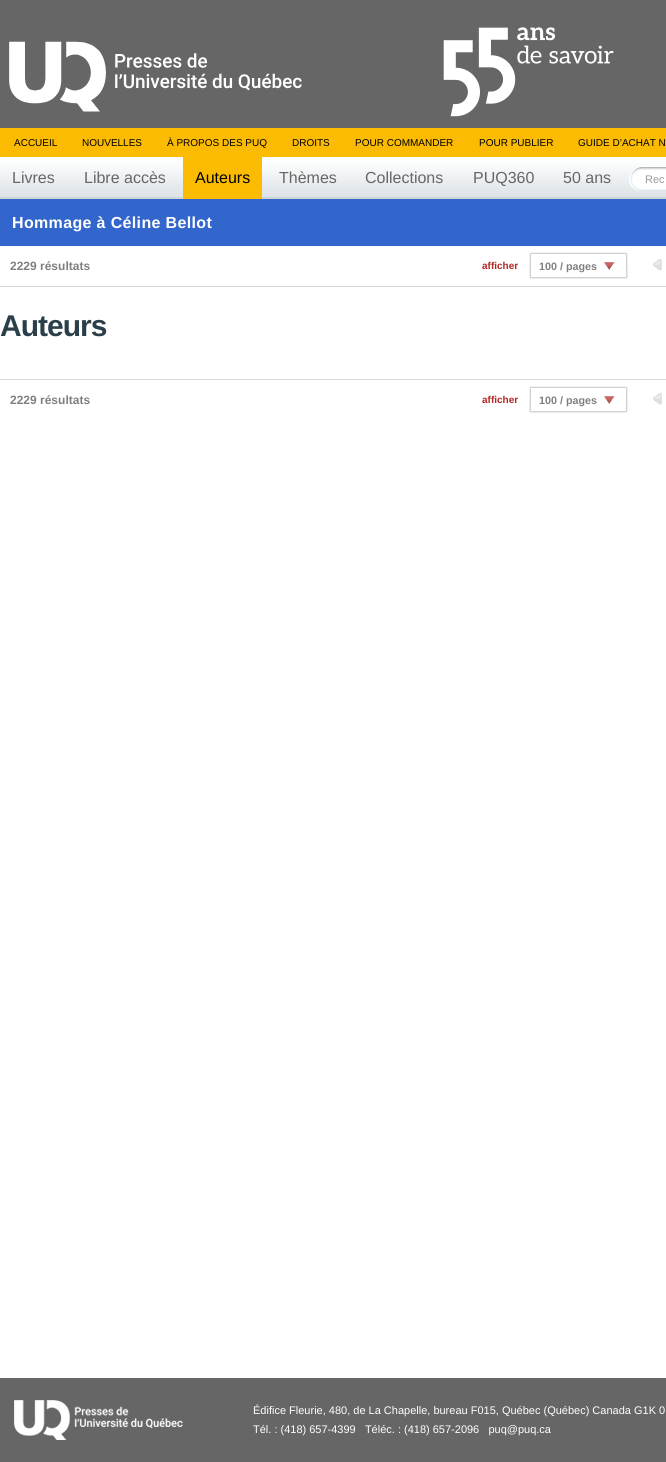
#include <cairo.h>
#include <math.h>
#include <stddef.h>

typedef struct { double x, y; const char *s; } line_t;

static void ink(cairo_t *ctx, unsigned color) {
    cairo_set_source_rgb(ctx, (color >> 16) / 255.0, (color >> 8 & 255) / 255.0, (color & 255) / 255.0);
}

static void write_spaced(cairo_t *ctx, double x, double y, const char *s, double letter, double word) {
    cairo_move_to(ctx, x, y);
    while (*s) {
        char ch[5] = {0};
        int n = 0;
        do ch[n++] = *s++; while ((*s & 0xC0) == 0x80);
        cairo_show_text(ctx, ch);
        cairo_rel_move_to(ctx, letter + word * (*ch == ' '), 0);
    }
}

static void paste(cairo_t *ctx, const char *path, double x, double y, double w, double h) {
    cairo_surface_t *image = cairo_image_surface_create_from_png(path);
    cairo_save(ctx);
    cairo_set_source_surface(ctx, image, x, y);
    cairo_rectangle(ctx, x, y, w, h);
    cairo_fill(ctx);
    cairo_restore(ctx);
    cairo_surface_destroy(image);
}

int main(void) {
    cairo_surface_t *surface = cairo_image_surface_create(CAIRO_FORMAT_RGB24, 666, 1462);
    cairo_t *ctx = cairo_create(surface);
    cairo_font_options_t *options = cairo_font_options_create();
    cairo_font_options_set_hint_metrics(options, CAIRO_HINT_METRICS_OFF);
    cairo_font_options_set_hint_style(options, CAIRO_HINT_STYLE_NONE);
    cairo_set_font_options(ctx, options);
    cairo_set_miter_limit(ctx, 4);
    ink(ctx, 0xFFFFFF);
    cairo_paint(ctx);
    ink(ctx, 0x666666);
    cairo_rectangle(ctx, 0, 0, 666, 128);
    cairo_fill(ctx);
    paste(ctx, "media/1.png", 0, 128, 666, 71);
    paste(ctx, "media/2.png", 9, 41, 293, 71);
    paste(ctx, "media/3.png", 443, 27, 171, 90);
    cairo_select_font_face(ctx, "Liberation Sans", CAIRO_FONT_SLANT_NORMAL, CAIRO_FONT_WEIGHT_NORMAL);
    cairo_set_font_size(ctx, 10);
    ink(ctx, 0x000000);
    {
        static const line_t items[] = {
            {14, 146, "ACCUEIL"},
            {82, 146, "NOUVELLES"},
            {167, 146, "À PROPOS DES PUQ"},
            {292, 146, "DROITS"},
            {355, 146, "POUR COMMANDER"},
            {479, 146, "POUR PUBLIER"},
            {578, 146, "GUIDE D’ACHAT N"},
        };
        for (size_t i = 0; i < sizeof items / sizeof *items; i++) {
            cairo_move_to(ctx, items[i].x, items[i].y);
            cairo_show_text(ctx, items[i].s);
        }
    }
    cairo_set_font_size(ctx, 16);
    ink(ctx, 0x666666);
    cairo_move_to(ctx, 12, 183);
    cairo_show_text(ctx, "Livres");
    cairo_move_to(ctx, 84, 183);
    cairo_show_text(ctx, "Libre accès");
    ink(ctx, 0xFABB00);
    cairo_rectangle(ctx, 183, 157, 79, 42);
    cairo_fill(ctx);
    ink(ctx, 0x000000);
    cairo_move_to(ctx, 195, 183);
    cairo_show_text(ctx, "Auteurs");
    ink(ctx, 0x666666);
    {
        static const line_t items[] = {
            {279, 183, "Thèmes"},
            {365, 183, "Collections"},
            {473, 183, "PUQ360"},
            {563, 183, "50 ans"},
        };
        for (size_t i = 0; i < sizeof items / sizeof *items; i++) {
            cairo_move_to(ctx, items[i].x, items[i].y);
            cairo_show_text(ctx, items[i].s);
        }
    }
    paste(ctx, "media/4.png", 629, 166, 37, 25);
    cairo_set_font_size(ctx, 11);
    ink(ctx, 0x989C9D);
    cairo_move_to(ctx, 645, 183);
    cairo_show_text(ctx, "Rec");
    ink(ctx, 0x3366CC);
    cairo_rectangle(ctx, 0, 199, 666, 47);
    cairo_fill(ctx);
    cairo_select_font_face(ctx, "Liberation Sans", CAIRO_FONT_SLANT_NORMAL, CAIRO_FONT_WEIGHT_BOLD);
    cairo_set_font_size(ctx, 16);
    ink(ctx, 0xFFFFFF);
    write_spaced(ctx, 12, 228, "Hommage à Céline Bellot", 0.35, 0);
    ink(ctx, 0xD6D7D8);
    cairo_rectangle(ctx, 0, 286, 666, 1);
    cairo_fill(ctx);
    cairo_set_font_size(ctx, 12);
    ink(ctx, 0x7F7F7F);
    cairo_move_to(ctx, 10, 270);
    cairo_show_text(ctx, "2229 résultats");
    cairo_set_font_size(ctx, 10);
    ink(ctx, 0xB42525);
    cairo_move_to(ctx, 482, 269);
    cairo_show_text(ctx, "afficher");
    paste(ctx, "media/5.png", 529, 252, 99, 27);
    cairo_rectangle(ctx, 530.5, 253.5, 96, 24);
    ink(ctx, 0xD1D2D3);
    cairo_set_line_width(ctx, 1);
    cairo_stroke(ctx);
    cairo_set_font_size(ctx, 10.75);
    ink(ctx, 0x7F7F7F);
    cairo_move_to(ctx, 539, 270);
    cairo_show_text(ctx, "100 / pages");
    paste(ctx, "media/6.png", 653, 258, 9, 13);
    cairo_set_font_size(ctx, 30);
    ink(ctx, 0x2B3F4A);
    write_spaced(ctx, 0, 336, "Auteurs", -1, 0);
    ink(ctx, 0xD6D7D8);
    cairo_rectangle(ctx, 0, 379, 666, 1);
    cairo_fill(ctx);
    cairo_set_font_size(ctx, 12);
    ink(ctx, 0x7F7F7F);
    cairo_move_to(ctx, 10, 404);
    cairo_show_text(ctx, "2229 résultats");
    cairo_set_font_size(ctx, 10);
    ink(ctx, 0xB42525);
    cairo_move_to(ctx, 482, 403);
    cairo_show_text(ctx, "afficher");
    paste(ctx, "media/5.png", 529, 386, 99, 27);
    cairo_rectangle(ctx, 530.5, 387.5, 96, 24);
    ink(ctx, 0xD1D2D3);
    cairo_stroke(ctx);
    cairo_set_font_size(ctx, 10.75);
    ink(ctx, 0x7F7F7F);
    cairo_move_to(ctx, 539, 404);
    cairo_show_text(ctx, "100 / pages");
    paste(ctx, "media/6.png", 653, 392, 9, 13);
    ink(ctx, 0x666666);
    cairo_rectangle(ctx, 0, 1378, 666, 84);
    cairo_fill(ctx);
    paste(ctx, "media/7.png", 14, 1400, 169, 40);
    cairo_select_font_face(ctx, "Liberation Sans", CAIRO_FONT_SLANT_NORMAL, CAIRO_FONT_WEIGHT_NORMAL);
    cairo_set_font_size(ctx, 11);
    ink(ctx, 0xFFFFFF);
    cairo_move_to(ctx, 253, 1414);
    cairo_show_text(ctx, "Édifice Fleurie, 480, de La Chapelle, bureau F015, Québec (Québec) Canada G1K 0");
    cairo_move_to(ctx, 253, 1433);
    cairo_show_text(ctx, "Tél. : (418) 657-4399   Téléc. : (418) 657-2096   puq@puq.ca");
    cairo_surface_write_to_png(surface, "image.png");
    cairo_font_options_destroy(options);
    cairo_destroy(ctx);
    cairo_surface_destroy(surface);
    return 0;
}
